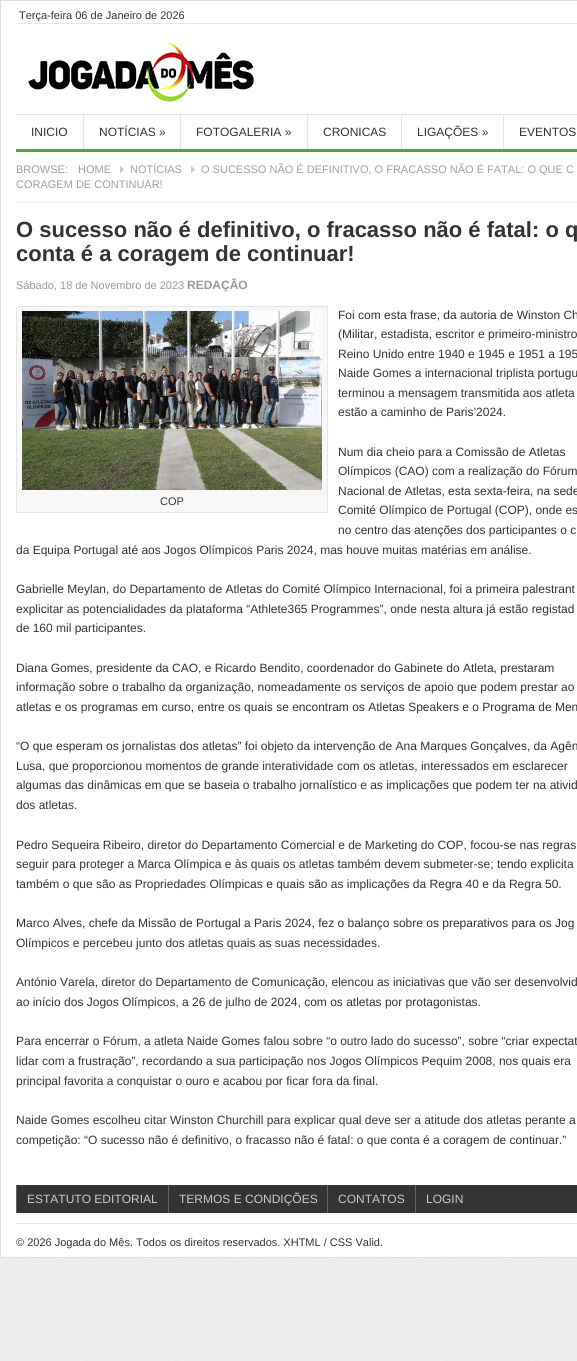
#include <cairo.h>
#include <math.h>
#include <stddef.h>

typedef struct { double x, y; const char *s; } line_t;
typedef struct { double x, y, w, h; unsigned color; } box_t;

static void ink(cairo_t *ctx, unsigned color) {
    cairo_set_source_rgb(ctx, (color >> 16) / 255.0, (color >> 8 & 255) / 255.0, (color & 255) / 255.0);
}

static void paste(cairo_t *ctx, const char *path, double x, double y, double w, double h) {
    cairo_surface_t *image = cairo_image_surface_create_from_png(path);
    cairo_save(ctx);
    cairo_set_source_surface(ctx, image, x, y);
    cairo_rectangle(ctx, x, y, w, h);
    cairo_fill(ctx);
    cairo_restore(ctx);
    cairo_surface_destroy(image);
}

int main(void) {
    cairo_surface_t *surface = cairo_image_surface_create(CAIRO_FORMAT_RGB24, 577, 1361);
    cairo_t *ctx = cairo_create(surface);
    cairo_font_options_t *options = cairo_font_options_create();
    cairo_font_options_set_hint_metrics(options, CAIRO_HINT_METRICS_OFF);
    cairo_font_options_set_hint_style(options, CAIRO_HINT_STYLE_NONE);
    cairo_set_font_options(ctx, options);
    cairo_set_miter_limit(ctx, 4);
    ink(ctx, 0xFFFFFF);
    cairo_paint(ctx);
    paste(ctx, "media/1.png", 0, 1258, 577, 103);
    cairo_rectangle(ctx, 0.5, 0.5, 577, 1257);
    ink(ctx, 0xDFDFDF);
    cairo_set_line_width(ctx, 1);
    cairo_stroke(ctx);
    ink(ctx, 0xE6E6E6);
    cairo_rectangle(ctx, 16, 23, 561, 1);
    cairo_fill(ctx);
    cairo_select_font_face(ctx, "Liberation Sans", CAIRO_FONT_SLANT_NORMAL, CAIRO_FONT_WEIGHT_NORMAL);
    cairo_set_font_size(ctx, 11);
    ink(ctx, 0x333333);
    cairo_move_to(ctx, 19, 19);
    cairo_show_text(ctx, "Terça-feira 06 de Janeiro de 2026");
    paste(ctx, "media/2.png", 28, 42, 226, 60);
    {
        static const box_t items[] = {
            {16, 114, 561, 1, 0xE0E0E0},
            {16, 149, 561, 3, 0x5CA12F},
            {83, 115, 1, 34, 0xE6E6E6},
        };
        for (size_t i = 0; i < sizeof items / sizeof *items; i++) {
            ink(ctx, items[i].color);
            cairo_rectangle(ctx, items[i].x, items[i].y, items[i].w, items[i].h);
            cairo_fill(ctx);
        }
    }
    cairo_set_font_size(ctx, 12);
    ink(ctx, 0x333333);
    cairo_move_to(ctx, 31, 136);
    cairo_show_text(ctx, "INICIO");
    ink(ctx, 0xE6E6E6);
    cairo_rectangle(ctx, 180, 115, 1, 34);
    cairo_fill(ctx);
    ink(ctx, 0x333333);
    cairo_move_to(ctx, 99, 136);
    cairo_show_text(ctx, "NOTÍCIAS »");
    ink(ctx, 0xE6E6E6);
    cairo_rectangle(ctx, 307, 115, 1, 34);
    cairo_fill(ctx);
    ink(ctx, 0x333333);
    cairo_move_to(ctx, 196, 136);
    cairo_show_text(ctx, "FOTOGALERIA »");
    ink(ctx, 0xE6E6E6);
    cairo_rectangle(ctx, 401, 115, 1, 34);
    cairo_fill(ctx);
    ink(ctx, 0x333333);
    cairo_move_to(ctx, 323, 136);
    cairo_show_text(ctx, "CRONICAS");
    ink(ctx, 0xE6E6E6);
    cairo_rectangle(ctx, 503, 115, 1, 34);
    cairo_fill(ctx);
    ink(ctx, 0x333333);
    cairo_move_to(ctx, 417, 136);
    cairo_show_text(ctx, "LIGAÇÕES »");
    cairo_move_to(ctx, 519, 136);
    cairo_show_text(ctx, "EVENTOS");
    ink(ctx, 0xECEDE8);
    cairo_rectangle(ctx, 16, 202, 561, 1);
    cairo_fill(ctx);
    cairo_set_font_size(ctx, 11);
    ink(ctx, 0x9F9F9F);
    cairo_move_to(ctx, 16, 173);
    cairo_show_text(ctx, "BROWSE:");
    cairo_move_to(ctx, 78, 173);
    cairo_show_text(ctx, "HOME");
    paste(ctx, "media/3.png", 120, 166, 4, 7);
    cairo_move_to(ctx, 130, 173);
    cairo_show_text(ctx, "NOTÍCIAS");
    paste(ctx, "media/3.png", 191, 166, 4, 7);
    cairo_move_to(ctx, 201, 173);
    cairo_show_text(ctx, "O SUCESSO NÃO É DEFINITIVO, O FRACASSO NÃO É FATAL: O QUE C");
    cairo_move_to(ctx, 16, 188);
    cairo_show_text(ctx, "CORAGEM DE CONTINUAR!");
    cairo_select_font_face(ctx, "Liberation Sans", CAIRO_FONT_SLANT_NORMAL, CAIRO_FONT_WEIGHT_BOLD);
    cairo_set_font_size(ctx, 22);
    ink(ctx, 0x333333);
    cairo_move_to(ctx, 16, 237);
    cairo_show_text(ctx, "O sucesso não é definitivo, o fracasso não é fatal: o q");
    cairo_move_to(ctx, 16, 261);
    cairo_show_text(ctx, "conta é a coragem de continuar!");
    cairo_select_font_face(ctx, "Liberation Sans", CAIRO_FONT_SLANT_NORMAL, CAIRO_FONT_WEIGHT_NORMAL);
    cairo_set_font_size(ctx, 11);
    ink(ctx, 0x999999);
    cairo_move_to(ctx, 16, 289);
    cairo_show_text(ctx, "Sábado, 18 de Novembro de 2023");
    cairo_select_font_face(ctx, "Liberation Sans", CAIRO_FONT_SLANT_NORMAL, CAIRO_FONT_WEIGHT_BOLD);
    cairo_set_font_size(ctx, 12);
    cairo_move_to(ctx, 187, 289);
    cairo_show_text(ctx, "REDAÇÃO");
    cairo_select_font_face(ctx, "Liberation Sans", CAIRO_FONT_SLANT_NORMAL, CAIRO_FONT_WEIGHT_NORMAL);
    ink(ctx, 0x333333);
    {
        static const line_t items[] = {
            {338, 319, "Foi com esta frase, da autoria de Winston Ch"},
            {338, 338, "(Militar, estadista, escritor e primeiro-ministro"},
            {338, 358, "Reino Unido entre 1940 e 1945 e 1951 a 195"},
            {338, 377, "Naide Gomes a internacional triplista portugu"},
            {338, 397, "terminou a mensagem transmitida aos atleta"},
            {338, 416, "estão a caminho de Paris’2024."},
            {338, 456, "Num dia cheio para a Comissão de Atletas"},
            {338, 475, "Olímpicos (CAO) com a realização do Fórum"},
            {338, 495, "Nacional de Atletas, esta sexta-feira, na sede"},
            {338, 514, "Comité Olímpico de Portugal (COP), onde es"},
            {338, 534, "no centro das atenções dos participantes o c"},
            {16, 554, "da Equipa Portugal até aos Jogos Olímpicos Paris 2024, mas houve muitas matérias em análise."},
        };
        for (size_t i = 0; i < sizeof items / sizeof *items; i++) {
            cairo_move_to(ctx, items[i].x, items[i].y);
            cairo_show_text(ctx, items[i].s);
        }
    }
    ink(ctx, 0xF7F7F7);
    cairo_rectangle(ctx, 16.5, 306.5, 311, 206);
    cairo_fill_preserve(ctx);
    ink(ctx, 0xE6E6E6);
    cairo_stroke(ctx);
    paste(ctx, "media/4.png", 22, 311, 300, 179);
    cairo_set_font_size(ctx, 11);
    ink(ctx, 0x333333);
    cairo_move_to(ctx, 160, 505);
    cairo_show_text(ctx, "COP");
    cairo_set_font_size(ctx, 12);
    {
        static const line_t items[] = {
            {16, 593, "Gabrielle Meylan, do Departamento de Atletas do Comité Olímpico Internacional, foi a primeira palestrant"},
            {16, 613, "explicitar as potencialidades da plataforma “Athlete365 Programmes”, onde nesta altura já estão registad"},
            {16, 632, "de 160 mil participantes."},
            {16, 672, "Diana Gomes, presidente da CAO, e Ricardo Bendito, coordenador do Gabinete do Atleta, prestaram"},
            {16, 691, "informação sobre o trabalho da organização, nomeadamente os serviços de apoio que podem prestar ao"},
            {16, 711, "atletas e os programas em curso, entre os quais se encontram os Atletas Speakers e o Programa de Men"},
            {16, 750, "“O que esperam os jornalistas dos atletas” foi objeto da intervenção de Ana Marques Gonçalves, da Agên"},
            {16, 770, "Lusa, que proporcionou momentos de grande interatividade com os atletas, interessados em esclarecer"},
            {16, 789, "algumas das dinâmicas em que se baseia o trabalho jornalístico e as implicações que podem ter na ativid"},
            {16, 809, "dos atletas."},
            {16, 849, "Pedro Sequeira Ribeiro, diretor do Departamento Comercial e de Marketing do COP, focou-se nas regras"},
            {16, 868, "seguir para proteger a Marca Olímpica e às quais os atletas também devem submeter-se; tendo explicita"},
            {16, 888, "também o que são as Propriedades Olímpicas e quais são as implicações da Regra 40 e da Regra 50."},
            {16, 927, "Marco Alves, chefe da Missão de Portugal a Paris 2024, fez o balanço sobre os preparativos para os Jog"},
            {16, 947, "Olímpicos e percebeu junto dos atletas quais as suas necessidades."},
            {16, 986, "António Varela, diretor do Departamento de Comunicação, elencou as iniciativas que vão ser desenvolvid"},
            {16, 1006, "ao início dos Jogos Olímpicos, a 26 de julho de 2024, com os atletas por protagonistas."},
            {16, 1045, "Para encerrar o Fórum, a atleta Naide Gomes falou sobre “o outro lado do sucesso”, sobre “criar expectat"},
            {16, 1065, "lidar com a frustração”, recordando a sua participação nos Jogos Olímpicos Pequim 2008, nos quais era"},
            {16, 1085, "principal favorita a conquistar o ouro e acabou por ficar fora da final."},
            {16, 1124, "Naide Gomes escolheu citar Winston Churchill para explicar qual deve ser a atitude dos atletas perante a"},
            {16, 1144, "competição: “O sucesso não é definitivo, o fracasso não é fatal: o que conta é a coragem de continuar.”"},
        };
        for (size_t i = 0; i < sizeof items / sizeof *items; i++) {
            cairo_move_to(ctx, items[i].x, items[i].y);
            cairo_show_text(ctx, items[i].s);
        }
    }
    cairo_rectangle(ctx, 17, 1185, 560, 28);
    cairo_fill(ctx);
    ink(ctx, 0x666666);
    cairo_rectangle(ctx, 16, 1185, 1, 28);
    cairo_fill(ctx);
    ink(ctx, 0xCCCCCC);
    cairo_move_to(ctx, 27, 1203);
    cairo_show_text(ctx, "ESTATUTO EDITORIAL");
    ink(ctx, 0x666666);
    cairo_rectangle(ctx, 168, 1185, 1, 28);
    cairo_fill(ctx);
    ink(ctx, 0xCCCCCC);
    cairo_move_to(ctx, 179, 1203);
    cairo_show_text(ctx, "TERMOS E CONDIÇÕES");
    ink(ctx, 0x666666);
    cairo_rectangle(ctx, 327, 1185, 1, 28);
    cairo_fill(ctx);
    ink(ctx, 0xCCCCCC);
    cairo_move_to(ctx, 338, 1203);
    cairo_show_text(ctx, "CONTATOS");
    ink(ctx, 0x666666);
    cairo_rectangle(ctx, 415, 1185, 1, 28);
    cairo_fill(ctx);
    ink(ctx, 0xCCCCCC);
    cairo_move_to(ctx, 426, 1203);
    cairo_show_text(ctx, "LOGIN");
    ink(ctx, 0xE6E6E6);
    cairo_rectangle(ctx, 16, 1223, 561, 1);
    cairo_fill(ctx);
    cairo_set_font_size(ctx, 11);
    ink(ctx, 0x333333);
    cairo_move_to(ctx, 16, 1246);
    cairo_show_text(ctx, "© 2026 Jogada do Mês. Todos os direitos reservados. XHTML / CSS Valid.");
    cairo_surface_write_to_png(surface, "image.png");
    cairo_font_options_destroy(options);
    cairo_destroy(ctx);
    cairo_surface_destroy(surface);
    return 0;
}
